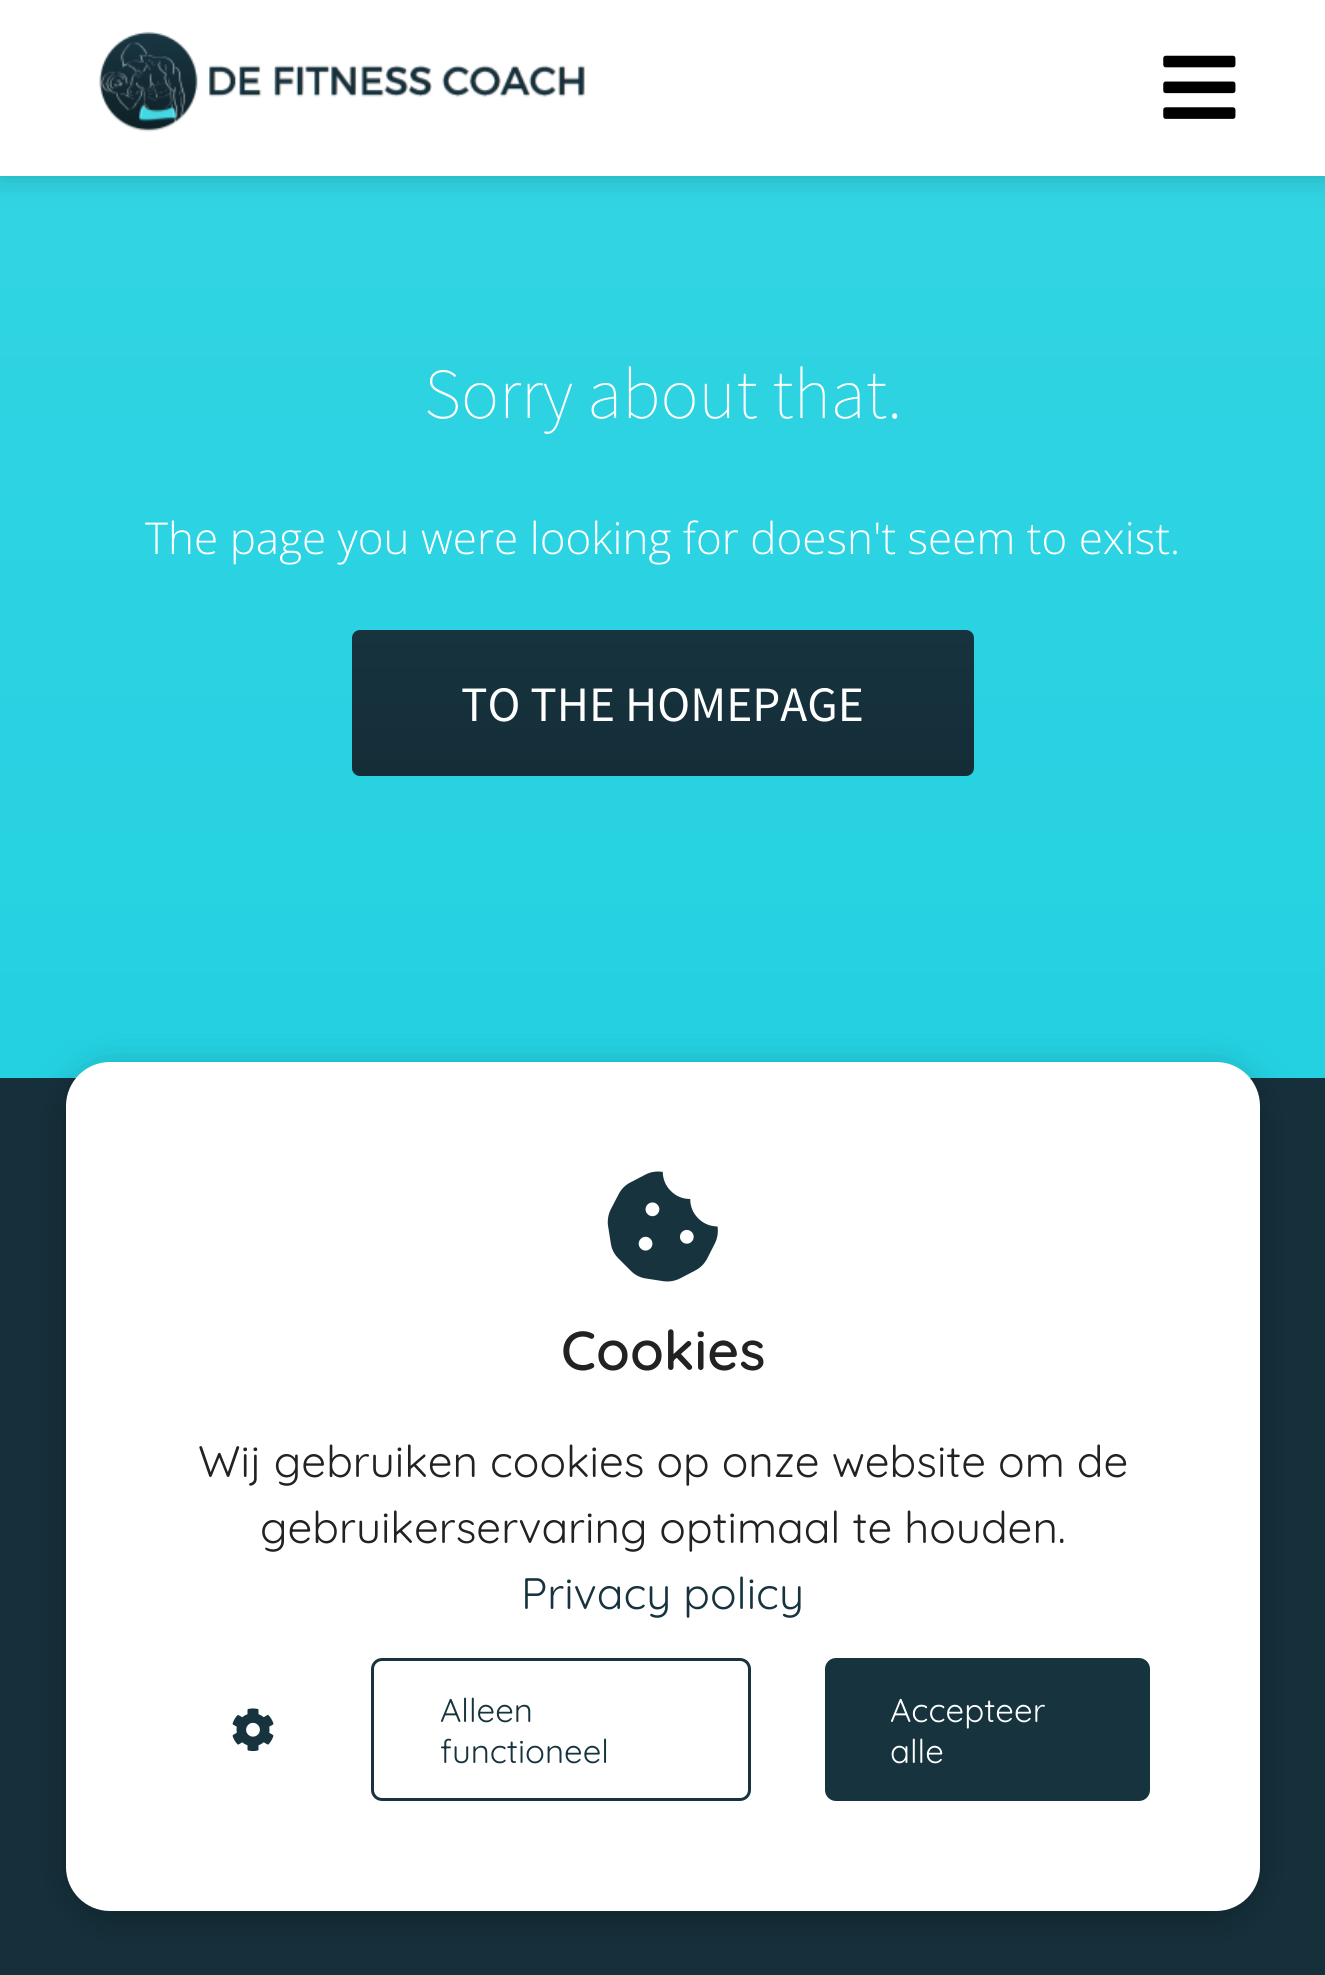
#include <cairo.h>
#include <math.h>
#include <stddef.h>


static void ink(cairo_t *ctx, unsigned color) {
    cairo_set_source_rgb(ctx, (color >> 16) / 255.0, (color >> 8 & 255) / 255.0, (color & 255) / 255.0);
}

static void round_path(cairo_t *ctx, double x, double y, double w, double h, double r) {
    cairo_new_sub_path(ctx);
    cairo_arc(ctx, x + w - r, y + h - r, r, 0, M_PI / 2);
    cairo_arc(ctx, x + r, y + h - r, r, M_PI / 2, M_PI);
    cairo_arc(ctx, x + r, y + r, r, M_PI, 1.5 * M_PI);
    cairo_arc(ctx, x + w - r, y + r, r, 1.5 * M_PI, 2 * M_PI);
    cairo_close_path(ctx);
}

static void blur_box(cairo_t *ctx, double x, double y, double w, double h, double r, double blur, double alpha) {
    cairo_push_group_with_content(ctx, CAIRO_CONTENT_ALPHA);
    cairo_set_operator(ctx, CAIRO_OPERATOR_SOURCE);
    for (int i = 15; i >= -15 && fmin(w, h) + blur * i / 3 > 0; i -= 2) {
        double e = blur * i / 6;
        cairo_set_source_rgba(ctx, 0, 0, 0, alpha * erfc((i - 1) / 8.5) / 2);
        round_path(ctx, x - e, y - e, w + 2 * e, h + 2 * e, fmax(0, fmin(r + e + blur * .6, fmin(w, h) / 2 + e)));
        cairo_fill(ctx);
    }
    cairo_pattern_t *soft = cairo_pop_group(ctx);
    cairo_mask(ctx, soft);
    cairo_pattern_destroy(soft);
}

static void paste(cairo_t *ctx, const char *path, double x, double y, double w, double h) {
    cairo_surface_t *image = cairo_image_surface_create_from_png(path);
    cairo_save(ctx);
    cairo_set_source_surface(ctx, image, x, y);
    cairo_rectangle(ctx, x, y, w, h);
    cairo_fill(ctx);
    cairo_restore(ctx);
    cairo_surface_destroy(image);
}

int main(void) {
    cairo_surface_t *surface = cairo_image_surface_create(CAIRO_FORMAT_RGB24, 1325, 1975);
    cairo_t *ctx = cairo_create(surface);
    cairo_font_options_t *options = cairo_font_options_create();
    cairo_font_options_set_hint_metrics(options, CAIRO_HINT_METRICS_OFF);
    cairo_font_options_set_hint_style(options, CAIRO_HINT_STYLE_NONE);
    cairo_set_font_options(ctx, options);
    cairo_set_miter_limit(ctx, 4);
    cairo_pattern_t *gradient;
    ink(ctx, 0x16303B);
    cairo_paint(ctx);
    gradient = cairo_pattern_create_linear(663, -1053, 663, 1078);
    cairo_pattern_add_color_stop_rgba(gradient, 0, 0.263, 0.847, 0.898, 1);
    cairo_pattern_add_color_stop_rgba(gradient, 1, 0.141, 0.82, 0.882, 1);
    cairo_set_source(ctx, gradient);
    cairo_pattern_destroy(gradient);
    cairo_rectangle(ctx, 0, 176, 1325, 902);
    cairo_fill(ctx);
    ink(ctx, 0x000000);
    blur_box(ctx, 0, 0, 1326, 176, 0, 14, 0.2);
    ink(ctx, 0xFFFFFF);
    cairo_rectangle(ctx, 0, 0, 1325, 176);
    cairo_fill(ctx);
    paste(ctx, "media/1.png", 99, 31, 486, 101);
    paste(ctx, "media/2.png", 1163, 55, 73, 64);
    cairo_select_font_face(ctx, "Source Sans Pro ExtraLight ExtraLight", CAIRO_FONT_SLANT_NORMAL, CAIRO_FONT_WEIGHT_NORMAL);
    cairo_set_font_size(ctx, 71.5);
    cairo_move_to(ctx, 424, 418);
    cairo_show_text(ctx, "Sorry about that.");
    cairo_select_font_face(ctx, "Open Sans Light", CAIRO_FONT_SLANT_NORMAL, CAIRO_FONT_WEIGHT_NORMAL);
    cairo_set_font_size(ctx, 44);
    cairo_move_to(ctx, 145, 554);
    cairo_show_text(ctx, "The page you were looking for doesn't seem to exist.");
    ink(ctx, 0x16333E);
    round_path(ctx, 352, 630, 622, 146, 8);
    cairo_fill(ctx);
    gradient = cairo_pattern_create_linear(663, 630, 663, 776);
    cairo_pattern_add_color_stop_rgba(gradient, 0, 0, 0, 0, 0);
    cairo_pattern_add_color_stop_rgba(gradient, 1, 0, 0, 0, 0.1);
    cairo_set_source(ctx, gradient);
    cairo_pattern_destroy(gradient);
    round_path(ctx, 352, 630, 622, 146, 8);
    cairo_fill(ctx);
    cairo_select_font_face(ctx, "Source Sans Pro", CAIRO_FONT_SLANT_NORMAL, CAIRO_FONT_WEIGHT_NORMAL);
    cairo_set_font_size(ctx, 49.5);
    ink(ctx, 0xFFFFFF);
    cairo_move_to(ctx, 461, 721);
    cairo_show_text(ctx, "TO THE HOMEPAGE");
    ink(ctx, 0x000000);
    blur_box(ctx, 66, 1070, 1194, 850, 44, 20.5, 0.24);
    ink(ctx, 0xFFFFFF);
    round_path(ctx, 66, 1062, 1194, 849, 44);
    cairo_fill(ctx);
    paste(ctx, "media/3.png", 607, 1171, 111, 111);
    cairo_select_font_face(ctx, "Quicksand SemiBold", CAIRO_FONT_SLANT_NORMAL, CAIRO_FONT_WEIGHT_NORMAL);
    cairo_set_font_size(ctx, 55);
    ink(ctx, 0x222222);
    cairo_move_to(ctx, 561, 1370);
    cairo_show_text(ctx, "Cookies");
    cairo_select_font_face(ctx, "Quicksand", CAIRO_FONT_SLANT_NORMAL, CAIRO_FONT_WEIGHT_NORMAL);
    cairo_set_font_size(ctx, 44);
    cairo_move_to(ctx, 198, 1477);
    cairo_show_text(ctx, "Wij gebruiken cookies op onze website om de");
    cairo_move_to(ctx, 260, 1543);
    cairo_show_text(ctx, "gebruikerservaring optimaal te houden.");
    ink(ctx, 0x16333E);
    cairo_move_to(ctx, 521, 1609);
    cairo_show_text(ctx, "Privacy policy");
    paste(ctx, "media/4.png", 232, 1708, 42, 44);
    round_path(ctx, 372.5, 1659.5, 377, 140, 9.5);
    cairo_set_line_width(ctx, 3);
    cairo_stroke(ctx);
    cairo_set_font_size(ctx, 33);
    cairo_move_to(ctx, 440, 1722);
    cairo_show_text(ctx, "Alleen");
    cairo_move_to(ctx, 440, 1763);
    cairo_show_text(ctx, "functioneel");
    round_path(ctx, 825, 1658, 325, 143, 11);
    cairo_fill(ctx);
    ink(ctx, 0xFFFFFF);
    cairo_move_to(ctx, 890, 1722);
    cairo_show_text(ctx, "Accepteer");
    cairo_move_to(ctx, 890, 1763);
    cairo_show_text(ctx, "alle");
    cairo_surface_write_to_png(surface, "image.png");
    cairo_font_options_destroy(options);
    cairo_destroy(ctx);
    cairo_surface_destroy(surface);
    return 0;
}
